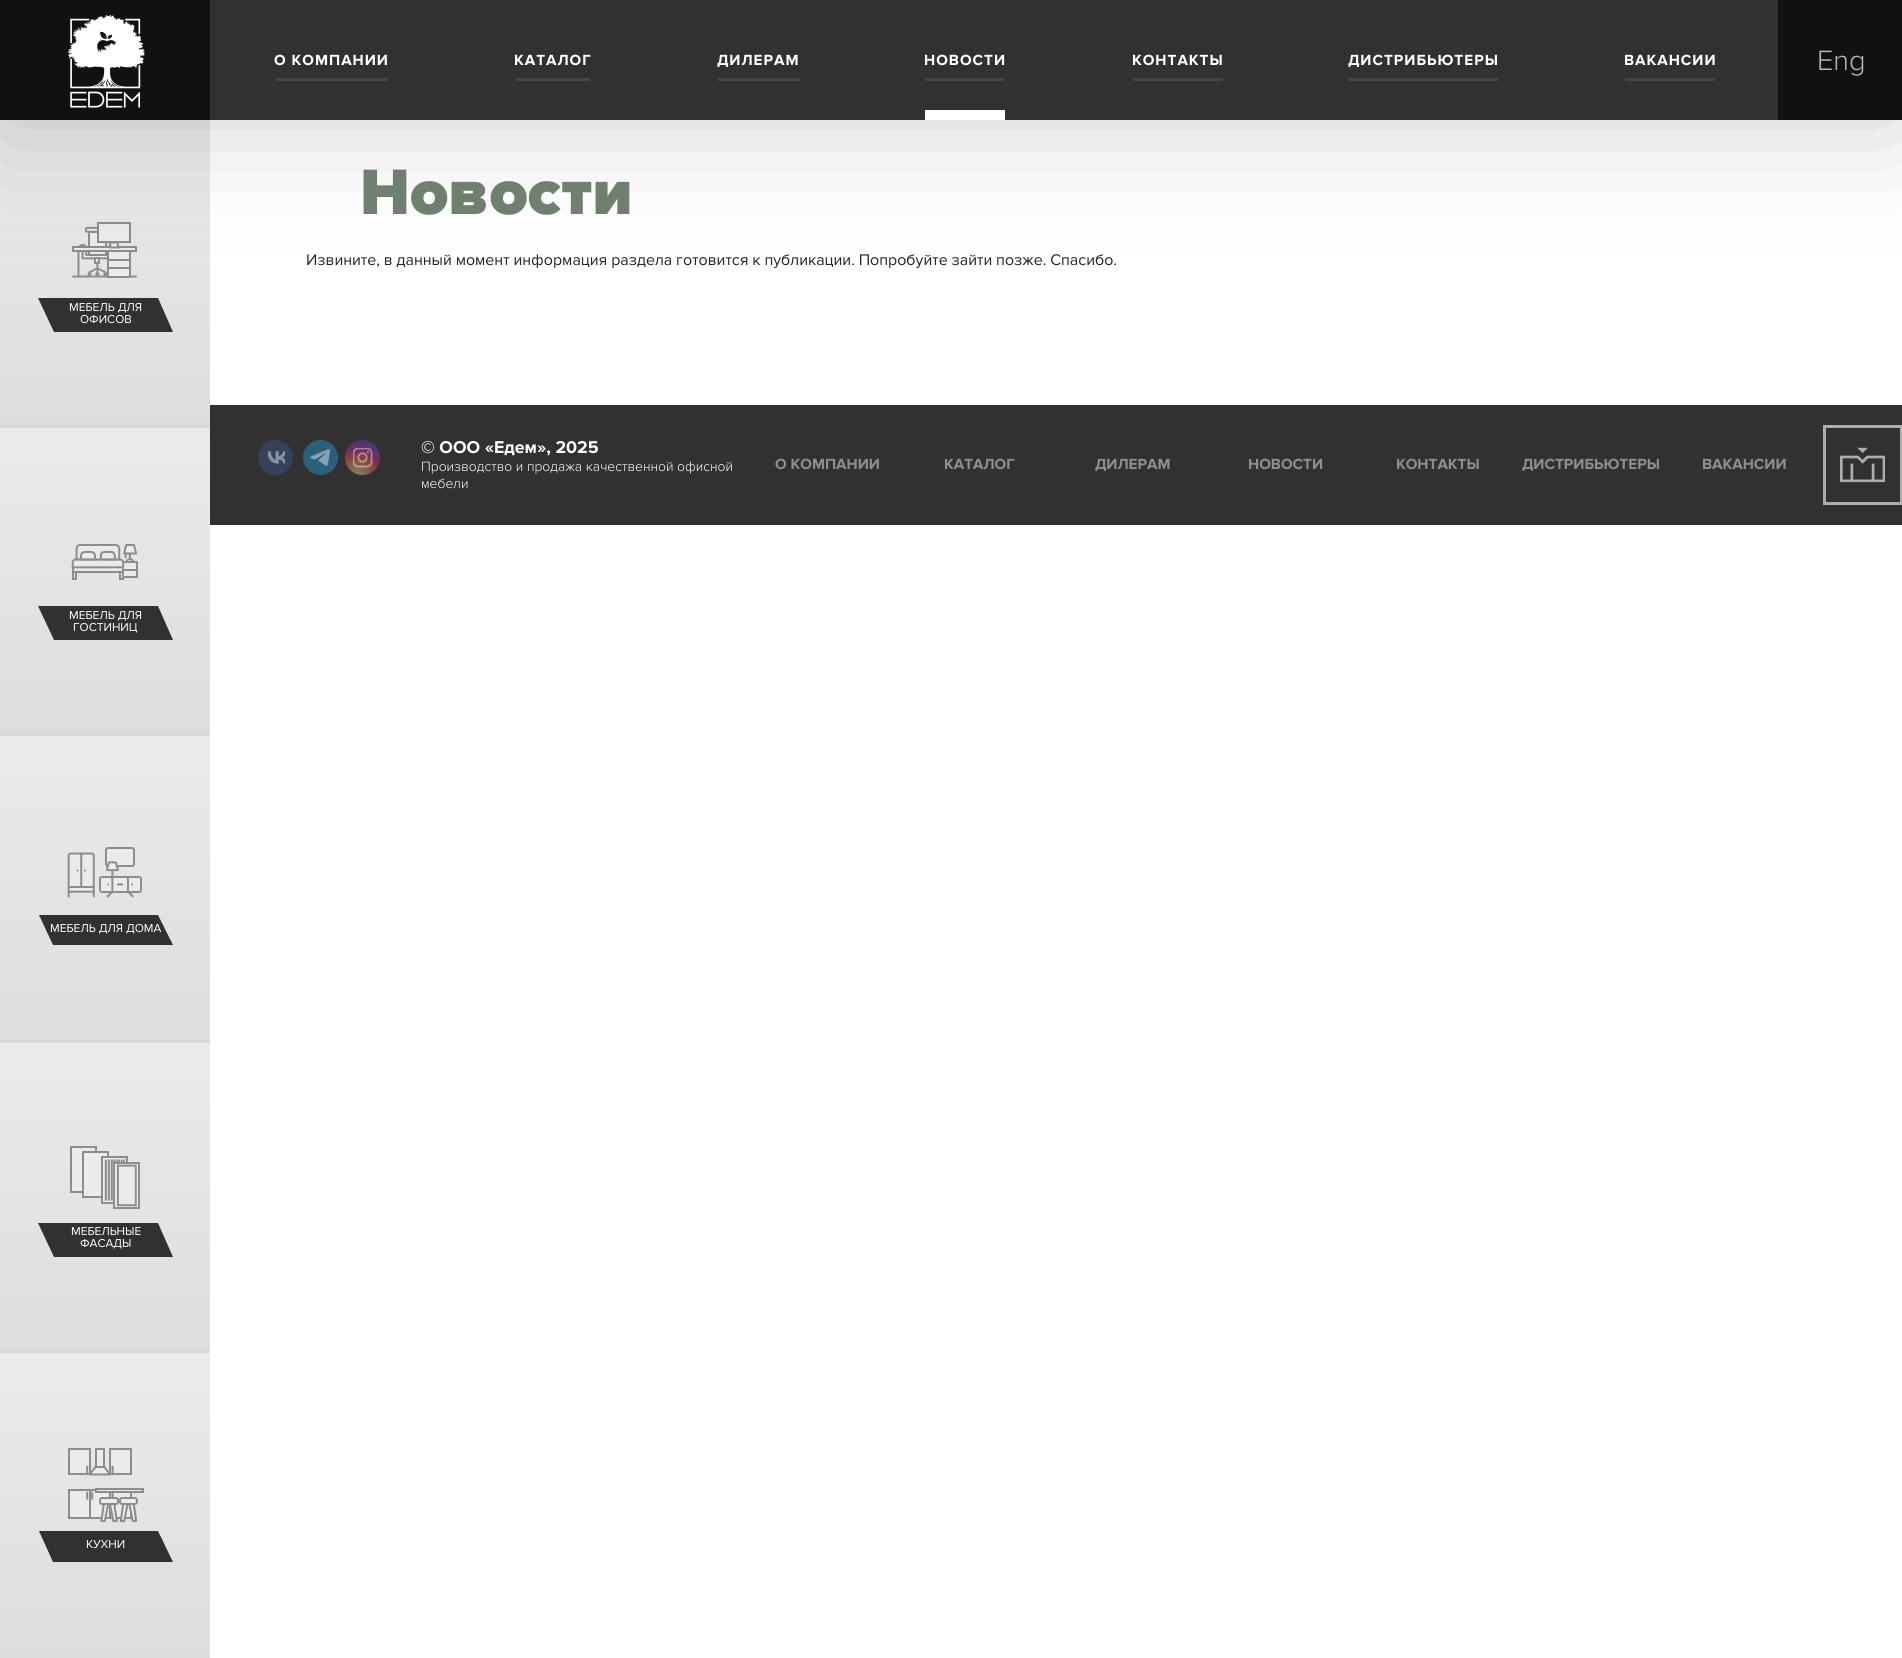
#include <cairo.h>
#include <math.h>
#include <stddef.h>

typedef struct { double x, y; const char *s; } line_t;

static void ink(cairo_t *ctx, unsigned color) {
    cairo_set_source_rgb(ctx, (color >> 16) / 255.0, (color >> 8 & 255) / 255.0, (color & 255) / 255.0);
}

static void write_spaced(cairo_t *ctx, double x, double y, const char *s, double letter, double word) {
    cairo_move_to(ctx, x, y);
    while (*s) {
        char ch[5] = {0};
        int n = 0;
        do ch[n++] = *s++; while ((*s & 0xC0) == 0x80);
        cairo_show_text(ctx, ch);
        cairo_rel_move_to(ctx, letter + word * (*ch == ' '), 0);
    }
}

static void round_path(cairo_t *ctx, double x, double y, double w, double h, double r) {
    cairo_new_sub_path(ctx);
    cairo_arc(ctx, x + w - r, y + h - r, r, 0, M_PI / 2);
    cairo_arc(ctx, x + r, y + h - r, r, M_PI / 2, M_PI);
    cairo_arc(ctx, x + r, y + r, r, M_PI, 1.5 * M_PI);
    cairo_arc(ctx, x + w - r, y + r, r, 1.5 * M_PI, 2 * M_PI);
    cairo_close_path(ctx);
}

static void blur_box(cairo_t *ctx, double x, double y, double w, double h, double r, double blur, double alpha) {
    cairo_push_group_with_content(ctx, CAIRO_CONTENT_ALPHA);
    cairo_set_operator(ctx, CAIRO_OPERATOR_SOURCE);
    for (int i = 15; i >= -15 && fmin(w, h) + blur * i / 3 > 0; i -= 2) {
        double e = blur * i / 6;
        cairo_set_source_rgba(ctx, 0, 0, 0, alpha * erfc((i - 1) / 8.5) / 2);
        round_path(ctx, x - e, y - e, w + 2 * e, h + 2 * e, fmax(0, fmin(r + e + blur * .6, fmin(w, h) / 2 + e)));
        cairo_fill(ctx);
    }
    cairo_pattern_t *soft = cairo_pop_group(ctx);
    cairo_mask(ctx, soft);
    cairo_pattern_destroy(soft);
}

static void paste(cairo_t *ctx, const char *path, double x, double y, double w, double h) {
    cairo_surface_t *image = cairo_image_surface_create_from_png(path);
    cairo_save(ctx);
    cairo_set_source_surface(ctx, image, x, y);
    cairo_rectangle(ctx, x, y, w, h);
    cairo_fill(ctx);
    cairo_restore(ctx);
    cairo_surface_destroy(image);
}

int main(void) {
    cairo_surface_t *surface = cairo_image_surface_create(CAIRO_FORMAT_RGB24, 1902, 1658);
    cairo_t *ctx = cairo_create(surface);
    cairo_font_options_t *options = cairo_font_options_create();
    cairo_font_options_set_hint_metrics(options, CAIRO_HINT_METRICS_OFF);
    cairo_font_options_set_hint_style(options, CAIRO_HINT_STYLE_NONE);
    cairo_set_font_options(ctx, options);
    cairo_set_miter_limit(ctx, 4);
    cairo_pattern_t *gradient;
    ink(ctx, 0xFFFFFF);
    cairo_paint(ctx);
    gradient = cairo_pattern_create_linear(105, 425, 105, 120);
    cairo_pattern_add_color_stop_rgba(gradient, 0, 0.867, 0.867, 0.867, 1);
    cairo_pattern_add_color_stop_rgba(gradient, 1, 0.922, 0.922, 0.922, 1);
    cairo_set_source(ctx, gradient);
    cairo_pattern_destroy(gradient);
    cairo_rectangle(ctx, 0, 120, 210, 305);
    cairo_fill(ctx);
    paste(ctx, "media/2.png", 78, 226, 32, 50);
    ink(ctx, 0xEBEBEB);
    cairo_rectangle(ctx, 73, 247, 63, 4);
    cairo_fill_preserve(ctx);
    ink(ctx, 0x8D8D8D);
    cairo_stroke(ctx);
    paste(ctx, "media/3.png", 97, 222, 34, 27);
    cairo_new_path(ctx);
    cairo_move_to(ctx, 73, 276.5);
    cairo_line_to(ctx, 136, 276.5);
    cairo_set_line_cap(ctx, CAIRO_LINE_CAP_ROUND);
    cairo_set_line_join(ctx, CAIRO_LINE_JOIN_ROUND);
    cairo_stroke(ctx);
    ink(ctx, 0xEBEBEB);
    cairo_rectangle(ctx, 108, 251, 22, 9);
    cairo_fill_preserve(ctx);
    ink(ctx, 0x8D8D8D);
    cairo_set_line_cap(ctx, CAIRO_LINE_CAP_BUTT);
    cairo_set_line_join(ctx, CAIRO_LINE_JOIN_MITER);
    cairo_stroke(ctx);
    ink(ctx, 0xEBEBEB);
    cairo_rectangle(ctx, 108, 260, 22, 8);
    cairo_fill_preserve(ctx);
    ink(ctx, 0x8D8D8D);
    cairo_stroke(ctx);
    ink(ctx, 0xEBEBEB);
    cairo_rectangle(ctx, 108, 268, 22, 9);
    cairo_fill_preserve(ctx);
    ink(ctx, 0x8D8D8D);
    cairo_stroke(ctx);
    cairo_new_path(ctx);
    cairo_move_to(ctx, 78.5, 251.5);
    cairo_line_to(ctx, 78.5, 276.5);
    cairo_set_line_cap(ctx, CAIRO_LINE_CAP_ROUND);
    cairo_set_line_join(ctx, CAIRO_LINE_JOIN_ROUND);
    cairo_stroke(ctx);
    ink(ctx, 0x313131);
    cairo_new_path(ctx);
    cairo_move_to(ctx, 38, 298);
    cairo_line_to(ctx, 158, 298);
    cairo_line_to(ctx, 173, 332);
    cairo_line_to(ctx, 54, 332);
    cairo_close_path(ctx);
    cairo_fill(ctx);
    ink(ctx, 0x000000);
    blur_box(ctx, 0, 0, 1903, 120, 0, 62.5, 0.2);
    ink(ctx, 0x313131);
    cairo_rectangle(ctx, 210, 0, 1568, 120);
    cairo_fill(ctx);
    ink(ctx, 0x111111);
    cairo_rectangle(ctx, 0, 0, 210, 120);
    cairo_fill(ctx);
    paste(ctx, "media/1.png", 68, 15, 77, 93);
    cairo_select_font_face(ctx, "Proxima Nova", CAIRO_FONT_SLANT_NORMAL, CAIRO_FONT_WEIGHT_BOLD);
    cairo_set_font_size(ctx, 15.25);
    ink(ctx, 0xFFFFFF);
    write_spaced(ctx, 274, 65, "О КОМПАНИИ", 1, 0);
    ink(ctx, 0x464646);
    cairo_rectangle(ctx, 275, 78, 113, 3);
    cairo_fill(ctx);
    ink(ctx, 0xFFFFFF);
    write_spaced(ctx, 514, 65, "КАТАЛОГ", 1, 0);
    ink(ctx, 0x464646);
    cairo_rectangle(ctx, 515, 78, 75, 3);
    cairo_fill(ctx);
    ink(ctx, 0xFFFFFF);
    write_spaced(ctx, 717, 65, "ДИЛЕРАМ", 1, 0);
    ink(ctx, 0x464646);
    cairo_rectangle(ctx, 718, 78, 82, 3);
    cairo_fill(ctx);
    ink(ctx, 0xFFFFFF);
    write_spaced(ctx, 924, 65, "НОВОСТИ", 1, 0);
    ink(ctx, 0x464646);
    cairo_rectangle(ctx, 925, 78, 80, 3);
    cairo_fill(ctx);
    ink(ctx, 0xFFFFFF);
    cairo_rectangle(ctx, 925, 110, 80, 10);
    cairo_fill(ctx);
    write_spaced(ctx, 1132, 65, "КОНТАКТЫ", 1, 0);
    ink(ctx, 0x464646);
    cairo_rectangle(ctx, 1133, 78, 90, 3);
    cairo_fill(ctx);
    ink(ctx, 0xFFFFFF);
    write_spaced(ctx, 1348, 65, "ДИСТРИБЬЮТЕРЫ", 1, 0);
    ink(ctx, 0x464646);
    cairo_rectangle(ctx, 1348, 78, 150, 3);
    cairo_fill(ctx);
    ink(ctx, 0xFFFFFF);
    write_spaced(ctx, 1624, 65, "ВАКАНСИИ", 1, 0);
    ink(ctx, 0x464646);
    cairo_rectangle(ctx, 1625, 78, 90, 3);
    cairo_fill(ctx);
    ink(ctx, 0x111111);
    cairo_rectangle(ctx, 1778, 0, 124, 120);
    cairo_fill(ctx);
    cairo_select_font_face(ctx, "Proxima Nova Light", CAIRO_FONT_SLANT_NORMAL, CAIRO_FONT_WEIGHT_NORMAL);
    cairo_set_font_size(ctx, 29);
    ink(ctx, 0xB7B7B7);
    cairo_move_to(ctx, 1817, 70);
    cairo_show_text(ctx, "Eng");
    cairo_select_font_face(ctx, "Proxima Nova Black", CAIRO_FONT_SLANT_NORMAL, CAIRO_FONT_WEIGHT_NORMAL);
    cairo_set_font_size(ctx, 66.5);
    ink(ctx, 0x70806F);
    cairo_move_to(ctx, 360, 214);
    cairo_show_text(ctx, "Новости");
    cairo_select_font_face(ctx, "Proxima Nova", CAIRO_FONT_SLANT_NORMAL, CAIRO_FONT_WEIGHT_NORMAL);
    cairo_set_font_size(ctx, 15.98);
    ink(ctx, 0x252525);
    write_spaced(ctx, 306, 265, "Извините, в данный момент информация раздела готовится к публикации. Попробуйте зайти позже. Спасибо.", 0, -0.25);
    ink(ctx, 0xEBEBEB);
    cairo_rectangle(ctx, 0, 736, 210, 304);
    cairo_fill(ctx);
    ink(ctx, 0xD9D8D7);
    cairo_rectangle(ctx, 0, 425, 210, 3);
    cairo_fill(ctx);
    cairo_set_font_size(ctx, 11.9);
    ink(ctx, 0xFFFFFF);
    cairo_move_to(ctx, 69, 311);
    cairo_show_text(ctx, "МЕБЕЛЬ ДЛЯ");
    cairo_move_to(ctx, 80, 323);
    cairo_show_text(ctx, "ОФИСОВ");
    gradient = cairo_pattern_create_linear(105, 733, 105, 428);
    cairo_pattern_add_color_stop_rgba(gradient, 0, 0.867, 0.867, 0.867, 1);
    cairo_pattern_add_color_stop_rgba(gradient, 1, 0.922, 0.922, 0.922, 1);
    cairo_set_source(ctx, gradient);
    cairo_pattern_destroy(gradient);
    cairo_rectangle(ctx, 0, 428, 210, 305);
    cairo_fill(ctx);
    ink(ctx, 0xD9D8D7);
    cairo_rectangle(ctx, 0, 733, 210, 3);
    cairo_fill(ctx);
    paste(ctx, "media/5.png", 123, 544, 14, 17);
    paste(ctx, "media/6.png", 123, 561, 15, 17);
    paste(ctx, "media/4.png", 71, 544, 54, 36);
    ink(ctx, 0x313131);
    cairo_new_path(ctx);
    cairo_move_to(ctx, 38, 606);
    cairo_line_to(ctx, 158, 606);
    cairo_line_to(ctx, 173, 640);
    cairo_line_to(ctx, 54, 640);
    cairo_close_path(ctx);
    cairo_fill(ctx);
    ink(ctx, 0xFFFFFF);
    cairo_move_to(ctx, 69, 619);
    cairo_show_text(ctx, "МЕБЕЛЬ ДЛЯ");
    cairo_move_to(ctx, 73, 631);
    cairo_show_text(ctx, "ГОСТИНИЦ");
    gradient = cairo_pattern_create_linear(105, 1040, 105, 735);
    cairo_pattern_add_color_stop_rgba(gradient, 0, 0.784, 0.784, 0.784, 0.4);
    cairo_pattern_add_color_stop_rgba(gradient, 1, 0.784, 0.784, 0.784, 0);
    cairo_set_source(ctx, gradient);
    cairo_pattern_destroy(gradient);
    cairo_rectangle(ctx, 0, 778, 210, 262);
    cairo_fill(ctx);
    ink(ctx, 0xD9D8D7);
    cairo_rectangle(ctx, 0, 1040, 210, 3);
    cairo_fill(ctx);
    paste(ctx, "media/7.png", 67, 847, 75, 51);
    ink(ctx, 0x313131);
    cairo_new_path(ctx);
    cairo_move_to(ctx, 39, 915);
    cairo_line_to(ctx, 158, 915);
    cairo_line_to(ctx, 173, 945);
    cairo_line_to(ctx, 53, 945);
    cairo_close_path(ctx);
    cairo_fill(ctx);
    ink(ctx, 0xFFFFFF);
    cairo_move_to(ctx, 50, 932);
    cairo_show_text(ctx, "МЕБЕЛЬ ДЛЯ ДОМА");
    gradient = cairo_pattern_create_linear(105, 1350, 105, 1043);
    cairo_pattern_add_color_stop_rgba(gradient, 0, 0.867, 0.867, 0.867, 1);
    cairo_pattern_add_color_stop_rgba(gradient, 1, 0.922, 0.922, 0.922, 1);
    cairo_set_source(ctx, gradient);
    cairo_pattern_destroy(gradient);
    cairo_rectangle(ctx, 0, 1043, 210, 307);
    cairo_fill(ctx);
    ink(ctx, 0xD9D8D7);
    cairo_rectangle(ctx, 0, 1350, 210, 3);
    cairo_fill(ctx);
    ink(ctx, 0xEBEBEB);
    cairo_rectangle(ctx, 71, 1147, 25, 45);
    cairo_fill_preserve(ctx);
    ink(ctx, 0x8D8D8D);
    cairo_set_line_cap(ctx, CAIRO_LINE_CAP_BUTT);
    cairo_set_line_join(ctx, CAIRO_LINE_JOIN_MITER);
    cairo_stroke(ctx);
    ink(ctx, 0xEBEBEB);
    cairo_rectangle(ctx, 83, 1152, 25, 45);
    cairo_fill_preserve(ctx);
    ink(ctx, 0x8D8D8D);
    cairo_stroke(ctx);
    paste(ctx, "media/8.png", 101, 1156, 39, 53);
    ink(ctx, 0x313131);
    cairo_new_path(ctx);
    cairo_move_to(ctx, 38, 1223);
    cairo_line_to(ctx, 158, 1223);
    cairo_line_to(ctx, 173, 1257);
    cairo_line_to(ctx, 54, 1257);
    cairo_close_path(ctx);
    cairo_fill(ctx);
    ink(ctx, 0xFFFFFF);
    cairo_move_to(ctx, 71, 1235);
    cairo_show_text(ctx, "МЕБЕЛЬНЫЕ");
    cairo_move_to(ctx, 80, 1247);
    cairo_show_text(ctx, "ФАСАДЫ");
    gradient = cairo_pattern_create_linear(105, 1658, 105, 1353);
    cairo_pattern_add_color_stop_rgba(gradient, 0, 0.867, 0.867, 0.867, 1);
    cairo_pattern_add_color_stop_rgba(gradient, 1, 0.922, 0.922, 0.922, 1);
    cairo_set_source(ctx, gradient);
    cairo_pattern_destroy(gradient);
    cairo_rectangle(ctx, 0, 1353, 210, 305);
    cairo_fill(ctx);
    paste(ctx, "media/10.png", 89, 1448, 22, 28);
    paste(ctx, "media/9.png", 68, 1448, 64, 71);
    paste(ctx, "media/11.png", 95, 1488, 49, 35);
    ink(ctx, 0x313131);
    cairo_new_path(ctx);
    cairo_move_to(ctx, 39, 1531);
    cairo_line_to(ctx, 158, 1531);
    cairo_line_to(ctx, 173, 1562);
    cairo_line_to(ctx, 53, 1562);
    cairo_close_path(ctx);
    cairo_fill(ctx);
    ink(ctx, 0xFFFFFF);
    cairo_move_to(ctx, 86, 1548);
    cairo_show_text(ctx, "КУХНИ");
    ink(ctx, 0x313131);
    cairo_rectangle(ctx, 210, 405, 1692, 120);
    cairo_fill(ctx);
    ink(ctx, 0x35425C);
    cairo_arc(ctx, 275.5, 457.5, 17.5, 0, 2 * M_PI);
    cairo_fill(ctx);
    paste(ctx, "media/12.png", 268, 451, 17, 13);
    ink(ctx, 0x2C607A);
    cairo_arc(ctx, 320.5, 457.5, 17.5, 0, 2 * M_PI);
    cairo_fill(ctx);
    paste(ctx, "media/13.png", 310, 449, 20, 17);
    gradient = cairo_pattern_create_radial(356, 477, 0, 356, 477, 45);
    cairo_pattern_add_color_stop_rgba(gradient, 0, 0.529, 0.514, 0.361, 1);
    cairo_pattern_add_color_stop_rgba(gradient, 0.05, 0.529, 0.514, 0.361, 1);
    cairo_pattern_add_color_stop_rgba(gradient, 0.45, 0.529, 0.259, 0.231, 1);
    cairo_pattern_add_color_stop_rgba(gradient, 0.6, 0.463, 0.173, 0.373, 1);
    cairo_pattern_add_color_stop_rgba(gradient, 0.9, 0.176, 0.259, 0.498, 1);
    cairo_set_source(ctx, gradient);
    cairo_pattern_destroy(gradient);
    cairo_arc(ctx, 362.5, 457.5, 17.5, 0, 2 * M_PI);
    cairo_fill(ctx);
    paste(ctx, "media/14.png", 353, 448, 20, 20);
    cairo_select_font_face(ctx, "Proxima Nova", CAIRO_FONT_SLANT_NORMAL, CAIRO_FONT_WEIGHT_BOLD);
    cairo_set_font_size(ctx, 17.75);
    ink(ctx, 0xFFFFFF);
    cairo_move_to(ctx, 421, 453);
    cairo_show_text(ctx, "© ООО «Едем», 2025");
    cairo_select_font_face(ctx, "Proxima Nova Light", CAIRO_FONT_SLANT_NORMAL, CAIRO_FONT_WEIGHT_NORMAL);
    cairo_set_font_size(ctx, 13.9);
    cairo_move_to(ctx, 421, 471);
    cairo_show_text(ctx, "Производство и продажа качественной офисной");
    cairo_move_to(ctx, 421, 488);
    cairo_show_text(ctx, "мебели");
    cairo_select_font_face(ctx, "Proxima Nova", CAIRO_FONT_SLANT_NORMAL, CAIRO_FONT_WEIGHT_BOLD);
    cairo_set_font_size(ctx, 15.25);
    ink(ctx, 0x8E8E8E);
    {
        static const line_t items[] = {
            {775, 469, "О КОМПАНИИ"},
            {944, 469, "КАТАЛОГ"},
            {1095, 469, "ДИЛЕРАМ"},
            {1248, 469, "НОВОСТИ"},
            {1396, 469, "КОНТАКТЫ"},
            {1522, 469, "ДИСТРИБЬЮТЕРЫ"},
            {1702, 469, "ВАКАНСИИ"},
        };
        for (size_t i = 0; i < sizeof items / sizeof *items; i++) {
            cairo_move_to(ctx, items[i].x, items[i].y);
            cairo_show_text(ctx, items[i].s);
        }
    }
    cairo_rectangle(ctx, 1824.5, 426.5, 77, 77);
    ink(ctx, 0xADADAD);
    cairo_set_line_width(ctx, 3);
    cairo_stroke(ctx);
    paste(ctx, "media/15.png", 1840, 447, 45, 36);
    cairo_surface_write_to_png(surface, "image.png");
    cairo_font_options_destroy(options);
    cairo_destroy(ctx);
    cairo_surface_destroy(surface);
    return 0;
}
